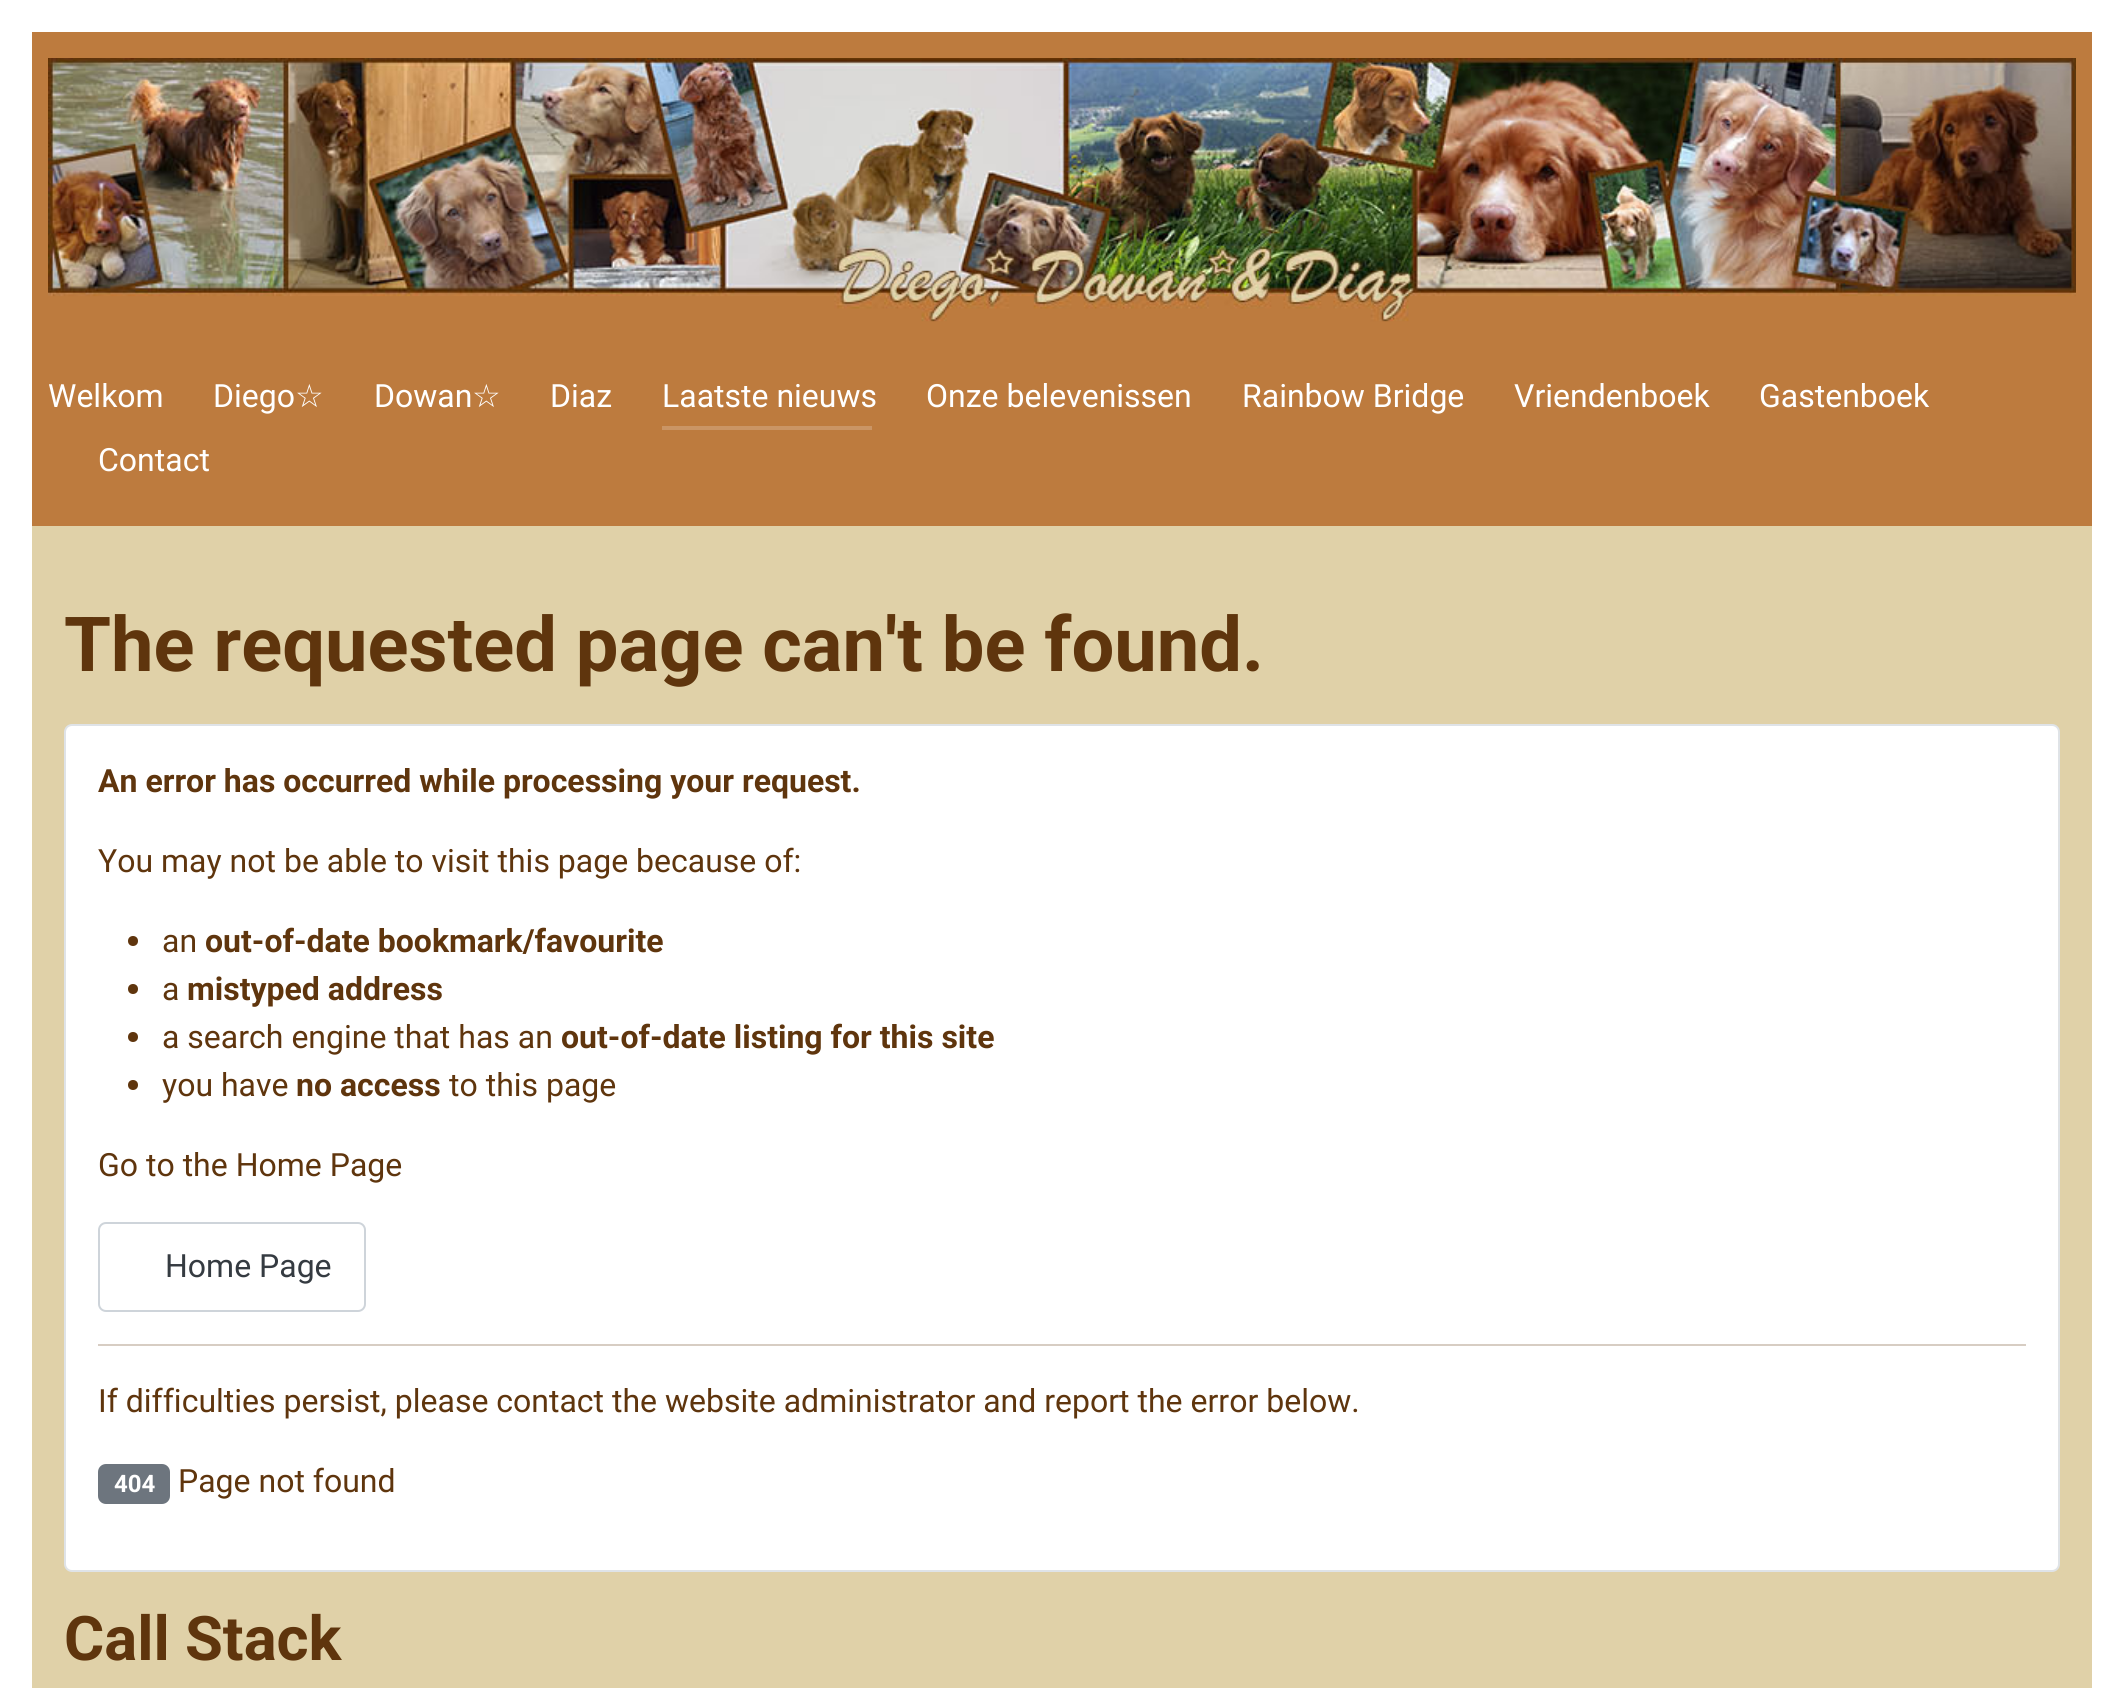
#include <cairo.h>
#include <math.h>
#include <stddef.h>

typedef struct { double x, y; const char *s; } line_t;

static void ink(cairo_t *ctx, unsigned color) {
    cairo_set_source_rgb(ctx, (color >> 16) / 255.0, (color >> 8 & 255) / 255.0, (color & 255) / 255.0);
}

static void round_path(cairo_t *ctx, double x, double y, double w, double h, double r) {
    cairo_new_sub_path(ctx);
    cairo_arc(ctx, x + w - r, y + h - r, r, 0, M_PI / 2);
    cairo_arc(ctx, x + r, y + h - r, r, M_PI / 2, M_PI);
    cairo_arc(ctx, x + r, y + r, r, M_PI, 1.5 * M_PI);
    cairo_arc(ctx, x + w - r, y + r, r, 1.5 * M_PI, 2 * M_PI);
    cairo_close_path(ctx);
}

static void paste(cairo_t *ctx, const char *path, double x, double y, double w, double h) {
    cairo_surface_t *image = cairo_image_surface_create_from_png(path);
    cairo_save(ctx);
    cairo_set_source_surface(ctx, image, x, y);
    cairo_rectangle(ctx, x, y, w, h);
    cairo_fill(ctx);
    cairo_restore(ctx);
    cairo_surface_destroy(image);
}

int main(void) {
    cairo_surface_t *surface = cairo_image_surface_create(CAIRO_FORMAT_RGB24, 2124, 1688);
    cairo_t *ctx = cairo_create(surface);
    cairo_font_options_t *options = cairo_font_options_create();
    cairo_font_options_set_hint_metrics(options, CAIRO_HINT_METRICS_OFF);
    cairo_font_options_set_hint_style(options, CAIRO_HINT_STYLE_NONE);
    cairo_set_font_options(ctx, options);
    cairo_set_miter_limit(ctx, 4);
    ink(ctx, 0xFFFFFF);
    cairo_paint(ctx);
    ink(ctx, 0xE0D1A8);
    cairo_rectangle(ctx, 32, 526, 2060, 1162);
    cairo_fill(ctx);
    ink(ctx, 0xBD7B3E);
    cairo_rectangle(ctx, 32, 32, 2060, 494);
    cairo_fill(ctx);
    paste(ctx, "media/1.png", 48, 58, 2028, 264);
    cairo_select_font_face(ctx, "Roboto", CAIRO_FONT_SLANT_NORMAL, CAIRO_FONT_WEIGHT_NORMAL);
    cairo_set_font_size(ctx, 32);
    ink(ctx, 0xFFFFFF);
    cairo_move_to(ctx, 48, 407);
    cairo_show_text(ctx, "Welkom");
    cairo_move_to(ctx, 213, 407);
    cairo_show_text(ctx, "Diego");
    cairo_select_font_face(ctx, "DejaVu Sans", CAIRO_FONT_SLANT_NORMAL, CAIRO_FONT_WEIGHT_NORMAL);
    cairo_move_to(ctx, 295, 407);
    cairo_show_text(ctx, "☆");
    cairo_select_font_face(ctx, "Roboto", CAIRO_FONT_SLANT_NORMAL, CAIRO_FONT_WEIGHT_NORMAL);
    cairo_move_to(ctx, 374, 407);
    cairo_show_text(ctx, "Dowan");
    cairo_select_font_face(ctx, "DejaVu Sans", CAIRO_FONT_SLANT_NORMAL, CAIRO_FONT_WEIGHT_NORMAL);
    cairo_move_to(ctx, 472, 407);
    cairo_show_text(ctx, "☆");
    cairo_select_font_face(ctx, "Roboto", CAIRO_FONT_SLANT_NORMAL, CAIRO_FONT_WEIGHT_NORMAL);
    cairo_move_to(ctx, 550, 407);
    cairo_show_text(ctx, "Diaz");
    cairo_move_to(ctx, 662, 407);
    cairo_show_text(ctx, "Laatste nieuws");
    ink(ctx, 0xCA9565);
    cairo_rectangle(ctx, 662, 426, 210, 4);
    cairo_fill(ctx);
    ink(ctx, 0xFFFFFF);
    {
        static const line_t items[] = {
            {926, 407, "Onze belevenissen"},
            {1242, 407, "Rainbow Bridge"},
            {1514, 407, "Vriendenboek"},
            {1759, 407, "Gastenboek"},
            {98, 471, "Contact"},
        };
        for (size_t i = 0; i < sizeof items / sizeof *items; i++) {
            cairo_move_to(ctx, items[i].x, items[i].y);
            cairo_show_text(ctx, items[i].s);
        }
    }
    cairo_select_font_face(ctx, "Roboto", CAIRO_FONT_SLANT_NORMAL, CAIRO_FONT_WEIGHT_BOLD);
    cairo_set_font_size(ctx, 75.9);
    ink(ctx, 0x5F350D);
    cairo_move_to(ctx, 64, 671);
    cairo_show_text(ctx, "The requested page can't be found.");
    ink(ctx, 0xFFFFFF);
    round_path(ctx, 65, 725, 1994, 846, 7);
    cairo_fill_preserve(ctx);
    ink(ctx, 0xDFE3E7);
    cairo_stroke(ctx);
    cairo_set_font_size(ctx, 32);
    ink(ctx, 0x5F350D);
    cairo_move_to(ctx, 98, 792);
    cairo_show_text(ctx, "An error has occurred while processing your request.");
    cairo_select_font_face(ctx, "Roboto", CAIRO_FONT_SLANT_NORMAL, CAIRO_FONT_WEIGHT_NORMAL);
    cairo_move_to(ctx, 98, 872);
    cairo_show_text(ctx, "You may not be able to visit this page because of:");
    cairo_new_path(ctx);
    cairo_arc(ctx, 133, 941, 5, 0, 2 * M_PI);
    cairo_fill(ctx);
    cairo_move_to(ctx, 162, 952);
    cairo_show_text(ctx, "an");
    cairo_select_font_face(ctx, "Roboto", CAIRO_FONT_SLANT_NORMAL, CAIRO_FONT_WEIGHT_BOLD);
    cairo_move_to(ctx, 205, 952);
    cairo_show_text(ctx, "out-of-date bookmark/favourite");
    cairo_new_path(ctx);
    cairo_arc(ctx, 133, 989, 5, 0, 2 * M_PI);
    cairo_fill(ctx);
    cairo_select_font_face(ctx, "Roboto", CAIRO_FONT_SLANT_NORMAL, CAIRO_FONT_WEIGHT_NORMAL);
    cairo_move_to(ctx, 162, 1000);
    cairo_show_text(ctx, "a");
    cairo_select_font_face(ctx, "Roboto", CAIRO_FONT_SLANT_NORMAL, CAIRO_FONT_WEIGHT_BOLD);
    cairo_move_to(ctx, 187, 1000);
    cairo_show_text(ctx, "mistyped address");
    cairo_new_path(ctx);
    cairo_arc(ctx, 133, 1037, 5, 0, 2 * M_PI);
    cairo_fill(ctx);
    cairo_select_font_face(ctx, "Roboto", CAIRO_FONT_SLANT_NORMAL, CAIRO_FONT_WEIGHT_NORMAL);
    cairo_move_to(ctx, 162, 1048);
    cairo_show_text(ctx, "a search engine that has an");
    cairo_select_font_face(ctx, "Roboto", CAIRO_FONT_SLANT_NORMAL, CAIRO_FONT_WEIGHT_BOLD);
    cairo_move_to(ctx, 561, 1048);
    cairo_show_text(ctx, "out-of-date listing for this site");
    cairo_new_path(ctx);
    cairo_arc(ctx, 133, 1085, 5, 0, 2 * M_PI);
    cairo_fill(ctx);
    cairo_select_font_face(ctx, "Roboto", CAIRO_FONT_SLANT_NORMAL, CAIRO_FONT_WEIGHT_NORMAL);
    cairo_move_to(ctx, 162, 1096);
    cairo_show_text(ctx, "you have");
    cairo_select_font_face(ctx, "Roboto", CAIRO_FONT_SLANT_NORMAL, CAIRO_FONT_WEIGHT_BOLD);
    cairo_move_to(ctx, 296, 1096);
    cairo_show_text(ctx, "no access");
    cairo_select_font_face(ctx, "Roboto", CAIRO_FONT_SLANT_NORMAL, CAIRO_FONT_WEIGHT_NORMAL);
    cairo_move_to(ctx, 449, 1096);
    cairo_show_text(ctx, "to this page");
    cairo_move_to(ctx, 98, 1176);
    cairo_show_text(ctx, "Go to the Home Page");
    round_path(ctx, 99, 1223, 266, 88, 7);
    ink(ctx, 0xCED4DA);
    cairo_stroke(ctx);
    ink(ctx, 0x353B41);
    cairo_move_to(ctx, 165, 1277);
    cairo_show_text(ctx, "Home Page");
    ink(ctx, 0xD7CDC3);
    cairo_rectangle(ctx, 98, 1344, 1928, 2);
    cairo_fill(ctx);
    ink(ctx, 0x5F350D);
    cairo_move_to(ctx, 98, 1412);
    cairo_show_text(ctx, "If difficulties persist, please contact the website administrator and report the error below.");
    ink(ctx, 0x6D757E);
    round_path(ctx, 98, 1464, 72, 40, 8);
    cairo_fill(ctx);
    cairo_select_font_face(ctx, "Roboto", CAIRO_FONT_SLANT_NORMAL, CAIRO_FONT_WEIGHT_BOLD);
    cairo_set_font_size(ctx, 24);
    ink(ctx, 0xFFFFFF);
    cairo_move_to(ctx, 114, 1492);
    cairo_show_text(ctx, "404");
    cairo_select_font_face(ctx, "Roboto", CAIRO_FONT_SLANT_NORMAL, CAIRO_FONT_WEIGHT_NORMAL);
    cairo_set_font_size(ctx, 32);
    ink(ctx, 0x5F350D);
    cairo_move_to(ctx, 178, 1492);
    cairo_show_text(ctx, "Page not found");
    cairo_select_font_face(ctx, "Roboto", CAIRO_FONT_SLANT_NORMAL, CAIRO_FONT_WEIGHT_BOLD);
    cairo_set_font_size(ctx, 61.5);
    cairo_move_to(ctx, 64, 1660);
    cairo_show_text(ctx, "Call Stack");
    cairo_surface_write_to_png(surface, "image.png");
    cairo_font_options_destroy(options);
    cairo_destroy(ctx);
    cairo_surface_destroy(surface);
    return 0;
}
